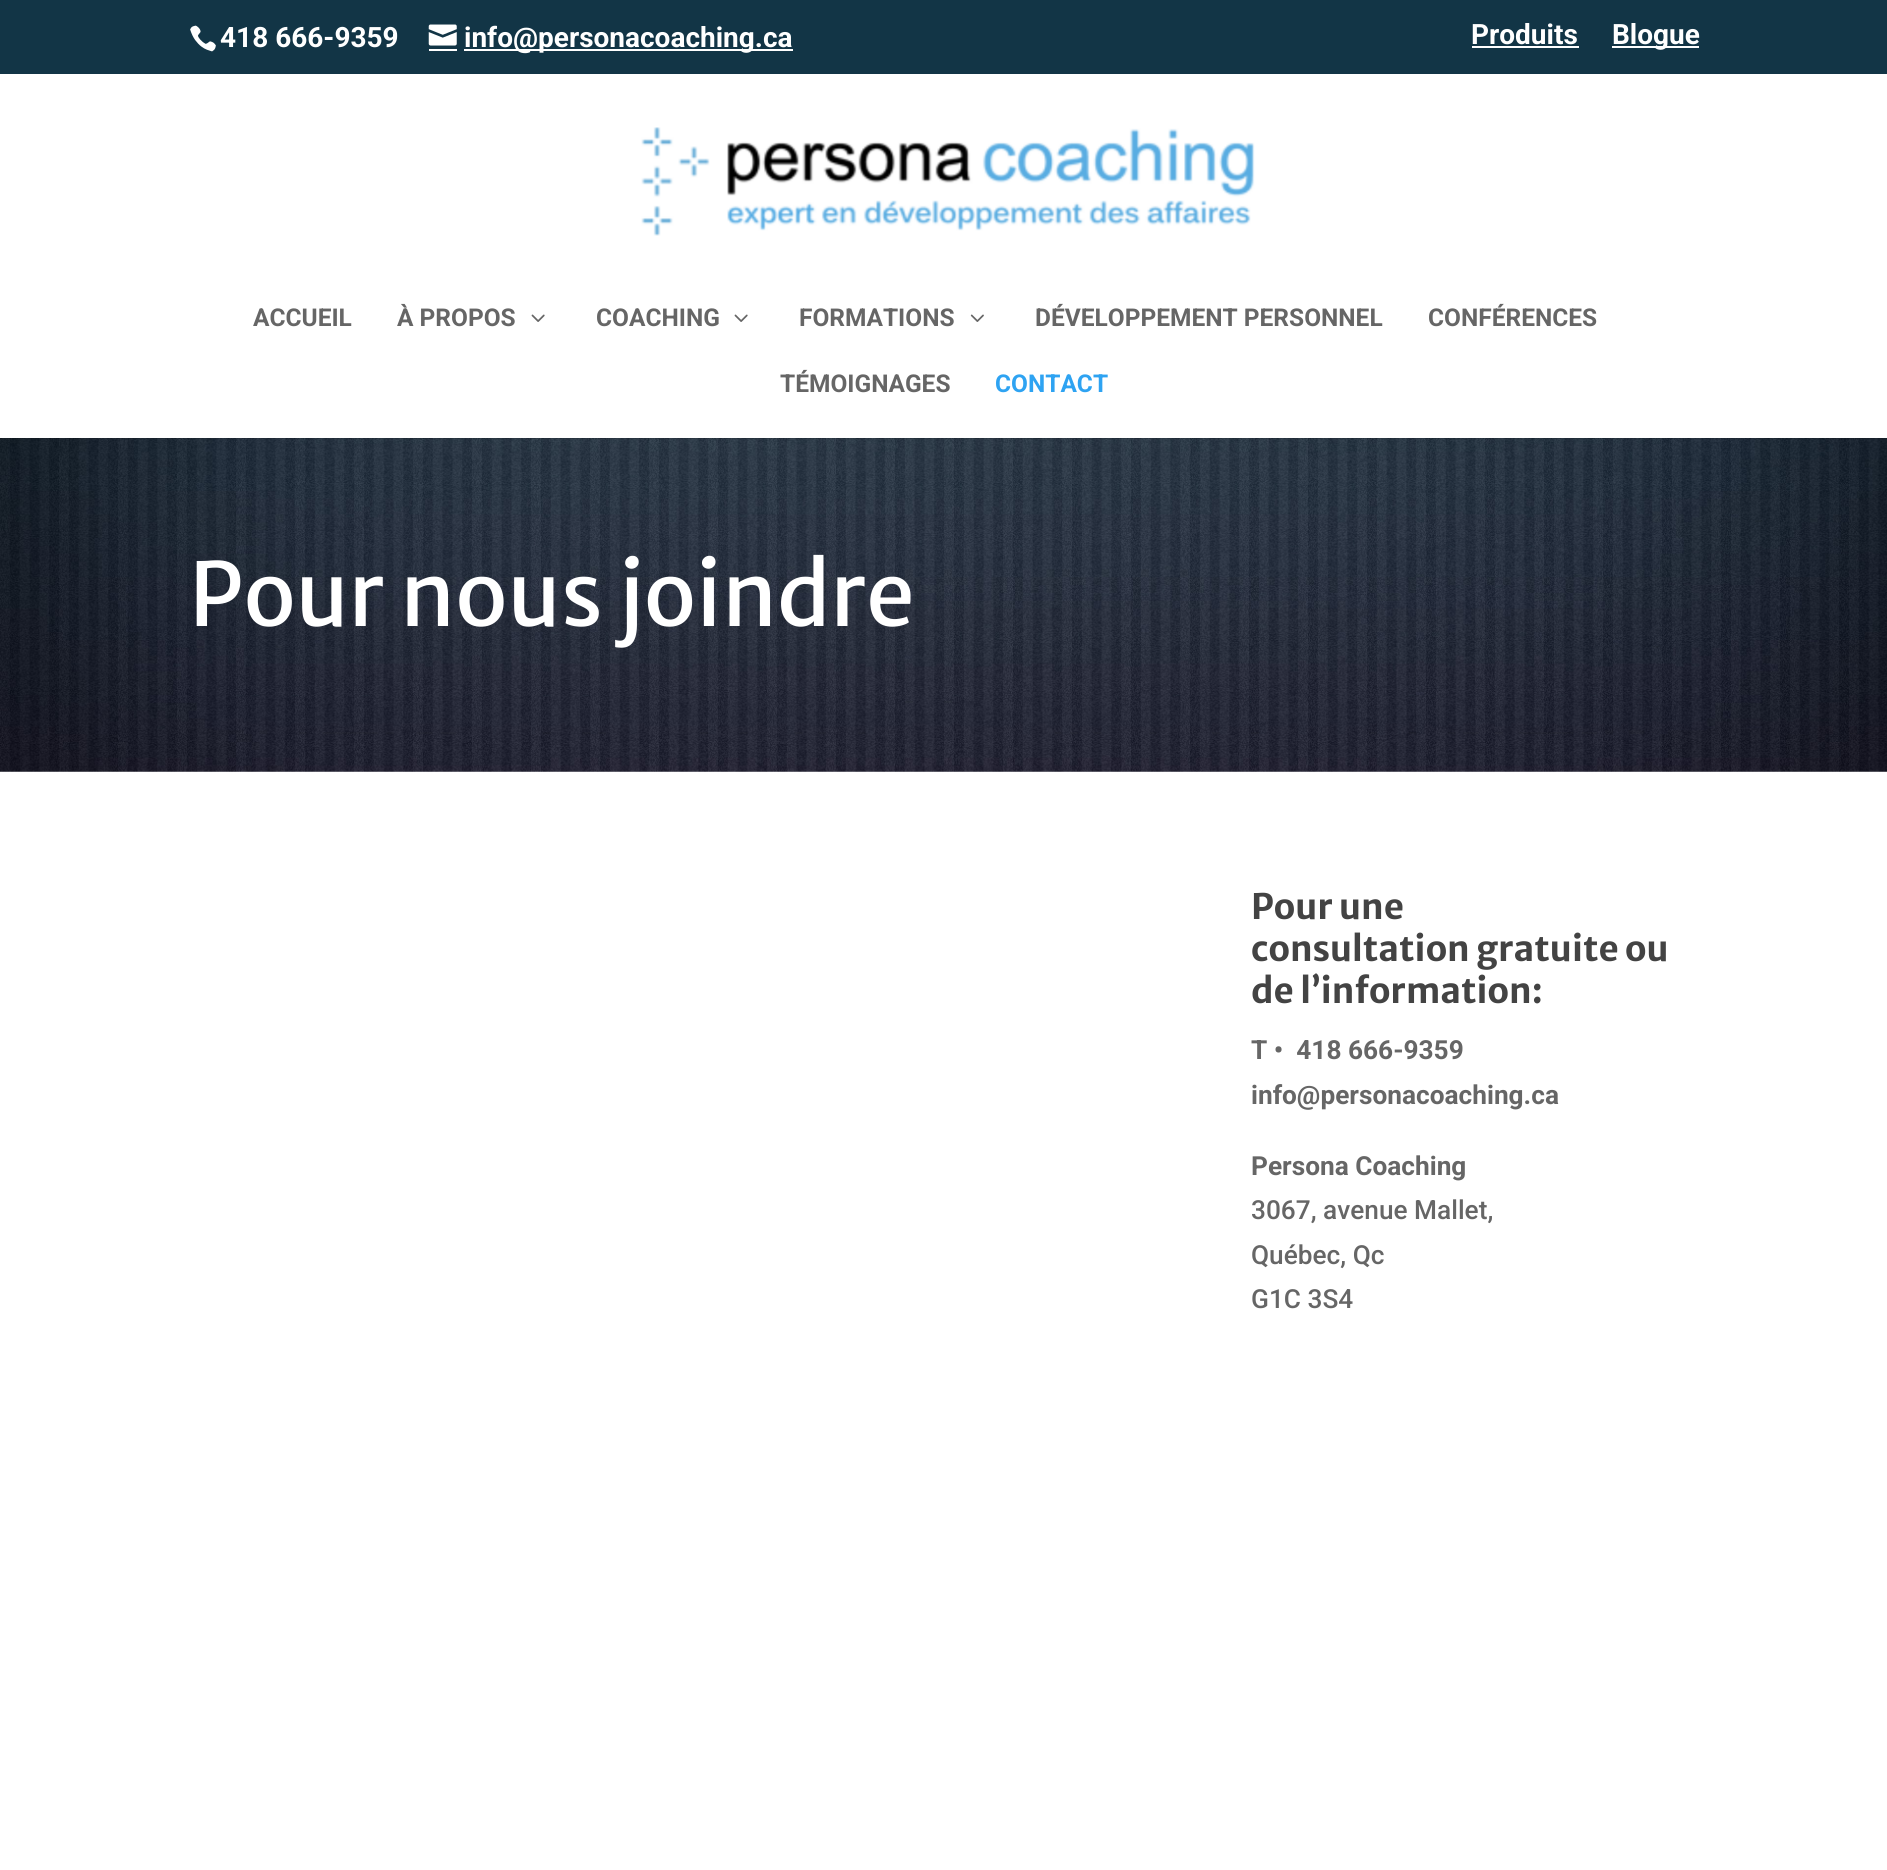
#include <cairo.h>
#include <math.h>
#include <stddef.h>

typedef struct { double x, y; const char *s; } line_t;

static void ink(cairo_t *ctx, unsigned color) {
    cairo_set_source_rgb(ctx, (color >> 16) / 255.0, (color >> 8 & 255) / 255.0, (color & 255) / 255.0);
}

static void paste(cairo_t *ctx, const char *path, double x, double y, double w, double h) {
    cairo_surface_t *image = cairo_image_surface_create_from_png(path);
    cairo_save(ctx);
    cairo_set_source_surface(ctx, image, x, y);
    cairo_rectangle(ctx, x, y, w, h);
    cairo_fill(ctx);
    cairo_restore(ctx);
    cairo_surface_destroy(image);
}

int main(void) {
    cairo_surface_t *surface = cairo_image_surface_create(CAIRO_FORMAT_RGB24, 1887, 1870);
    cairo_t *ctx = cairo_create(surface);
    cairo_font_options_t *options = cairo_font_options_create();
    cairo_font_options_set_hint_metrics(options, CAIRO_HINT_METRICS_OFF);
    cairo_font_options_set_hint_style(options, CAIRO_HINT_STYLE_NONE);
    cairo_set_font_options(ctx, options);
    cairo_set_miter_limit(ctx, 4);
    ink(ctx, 0xFFFFFF);
    cairo_paint(ctx);
    ink(ctx, 0x123546);
    cairo_rectangle(ctx, 0, 0, 1887, 74);
    cairo_fill(ctx);
    paste(ctx, "media/1.png", 190, 25, 26, 27);
    cairo_select_font_face(ctx, "Roboto", CAIRO_FONT_SLANT_NORMAL, CAIRO_FONT_WEIGHT_BOLD);
    cairo_set_font_size(ctx, 28);
    ink(ctx, 0xFFFFFF);
    cairo_move_to(ctx, 220, 47);
    cairo_show_text(ctx, "418 666-9359");
    paste(ctx, "media/2.png", 428, 24, 29, 22);
    cairo_rectangle(ctx, 464, 49, 329, 2);
    cairo_fill(ctx);
    cairo_move_to(ctx, 464, 47);
    cairo_show_text(ctx, "info@personacoaching.ca");
    cairo_rectangle(ctx, 429, 49, 28, 2);
    cairo_fill(ctx);
    cairo_move_to(ctx, 1471, 44);
    cairo_show_text(ctx, "Produits");
    cairo_rectangle(ctx, 1472, 46, 107, 2);
    cairo_fill(ctx);
    cairo_rectangle(ctx, 1612, 46, 87, 2);
    cairo_fill(ctx);
    cairo_move_to(ctx, 1612, 44);
    cairo_show_text(ctx, "Blogue");
    paste(ctx, "media/6.png", 0, 438, 1887, 334);
    cairo_set_source_rgba(ctx, 0, 0, 0, 0.1);
    cairo_rectangle(ctx, 0, 438, 1887, 1);
    cairo_fill(ctx);
    paste(ctx, "media/3.png", 641, 127, 614, 109);
    cairo_set_font_size(ctx, 24.5);
    ink(ctx, 0x666666);
    cairo_move_to(ctx, 253, 326);
    cairo_show_text(ctx, "ACCUEIL");
    cairo_move_to(ctx, 397, 326);
    cairo_show_text(ctx, "À PROPOS");
    paste(ctx, "media/4.png", 531, 314, 14, 8);
    cairo_move_to(ctx, 596, 326);
    cairo_show_text(ctx, "COACHING");
    paste(ctx, "media/4.png", 734, 314, 14, 8);
    cairo_move_to(ctx, 799, 326);
    cairo_show_text(ctx, "FORMATIONS");
    paste(ctx, "media/5.png", 970, 314, 14, 8);
    {
        static const line_t items[] = {
            {1035, 326, "DÉVELOPPEMENT PERSONNEL"},
            {1428, 326, "CONFÉRENCES"},
            {780, 392, "TÉMOIGNAGES"},
        };
        for (size_t i = 0; i < sizeof items / sizeof *items; i++) {
            cairo_move_to(ctx, items[i].x, items[i].y);
            cairo_show_text(ctx, items[i].s);
        }
    }
    ink(ctx, 0x2EA3F2);
    cairo_move_to(ctx, 995, 392);
    cairo_show_text(ctx, "CONTACT");
    cairo_select_font_face(ctx, "Merriweather Sans", CAIRO_FONT_SLANT_NORMAL, CAIRO_FONT_WEIGHT_NORMAL);
    cairo_set_font_size(ctx, 87.5);
    ink(ctx, 0xFFFFFF);
    cairo_move_to(ctx, 189, 626);
    cairo_show_text(ctx, "Pour nous joindre");
    cairo_select_font_face(ctx, "Merriweather Sans", CAIRO_FONT_SLANT_NORMAL, CAIRO_FONT_WEIGHT_BOLD);
    cairo_set_font_size(ctx, 35);
    ink(ctx, 0x434343);
    {
        static const line_t items[] = {
            {1251, 919, "Pour une"},
            {1251, 961, "consultation gratuite ou"},
            {1251, 1003, "de l’information:"},
        };
        for (size_t i = 0; i < sizeof items / sizeof *items; i++) {
            cairo_move_to(ctx, items[i].x, items[i].y);
            cairo_show_text(ctx, items[i].s);
        }
    }
    cairo_select_font_face(ctx, "Roboto", CAIRO_FONT_SLANT_NORMAL, CAIRO_FONT_WEIGHT_BOLD);
    cairo_set_font_size(ctx, 26.25);
    ink(ctx, 0x666666);
    {
        static const line_t items[] = {
            {1251, 1059, "T •  418 666-9359"},
            {1251, 1104, "info@personacoaching.ca"},
            {1251, 1175, "Persona Coaching"},
        };
        for (size_t i = 0; i < sizeof items / sizeof *items; i++) {
            cairo_move_to(ctx, items[i].x, items[i].y);
            cairo_show_text(ctx, items[i].s);
        }
    }
    cairo_select_font_face(ctx, "Roboto Medium", CAIRO_FONT_SLANT_NORMAL, CAIRO_FONT_WEIGHT_NORMAL);
    {
        static const line_t items[] = {
            {1251, 1219, "3067, avenue Mallet,"},
            {1251, 1264, "Québec, Qc"},
            {1251, 1308, "G1C 3S4"},
        };
        for (size_t i = 0; i < sizeof items / sizeof *items; i++) {
            cairo_move_to(ctx, items[i].x, items[i].y);
            cairo_show_text(ctx, items[i].s);
        }
    }
    cairo_surface_write_to_png(surface, "image.png");
    cairo_font_options_destroy(options);
    cairo_destroy(ctx);
    cairo_surface_destroy(surface);
    return 0;
}
